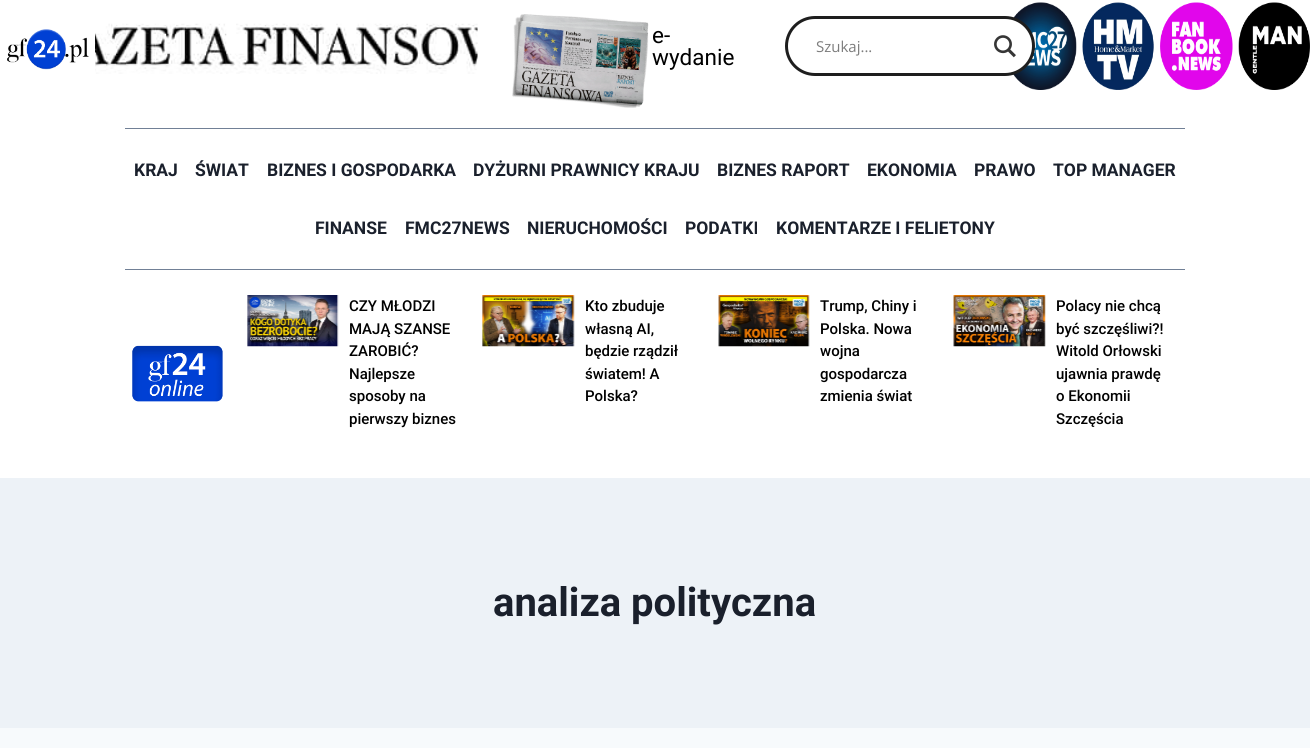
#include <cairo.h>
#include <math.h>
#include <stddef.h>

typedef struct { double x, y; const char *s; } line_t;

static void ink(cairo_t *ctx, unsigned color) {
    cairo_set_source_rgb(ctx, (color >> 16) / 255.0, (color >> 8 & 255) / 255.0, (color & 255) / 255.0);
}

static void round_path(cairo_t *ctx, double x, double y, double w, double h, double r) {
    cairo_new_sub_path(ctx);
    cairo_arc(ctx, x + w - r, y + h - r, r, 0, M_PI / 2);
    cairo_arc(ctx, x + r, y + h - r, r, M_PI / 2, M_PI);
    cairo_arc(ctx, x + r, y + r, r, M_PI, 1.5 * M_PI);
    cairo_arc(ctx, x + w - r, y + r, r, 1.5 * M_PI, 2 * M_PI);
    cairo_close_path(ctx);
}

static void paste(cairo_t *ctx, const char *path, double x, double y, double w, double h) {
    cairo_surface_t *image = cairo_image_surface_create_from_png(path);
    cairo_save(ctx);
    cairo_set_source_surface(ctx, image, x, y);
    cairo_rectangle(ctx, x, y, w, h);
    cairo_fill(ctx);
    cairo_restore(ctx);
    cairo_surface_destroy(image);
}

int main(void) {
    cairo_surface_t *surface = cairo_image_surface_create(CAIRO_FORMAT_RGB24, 1310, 748);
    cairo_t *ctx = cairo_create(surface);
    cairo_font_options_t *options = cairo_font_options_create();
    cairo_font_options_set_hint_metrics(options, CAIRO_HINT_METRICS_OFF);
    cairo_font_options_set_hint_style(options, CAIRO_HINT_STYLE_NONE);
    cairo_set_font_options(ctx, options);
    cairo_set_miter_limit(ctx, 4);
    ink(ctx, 0xF7FAFC);
    cairo_paint(ctx);
    ink(ctx, 0xFFFFFF);
    cairo_rectangle(ctx, 0, 0, 1310, 478);
    cairo_fill(ctx);
    paste(ctx, "media/1.png", 7, 29, 82, 41);
    paste(ctx, "media/2.png", 95, 23, 383, 51);
    paste(ctx, "media/3.png", 512, 14, 137, 94);
    cairo_select_font_face(ctx, "Roboto", CAIRO_FONT_SLANT_NORMAL, CAIRO_FONT_WEIGHT_NORMAL);
    cairo_set_font_size(ctx, 22.5);
    ink(ctx, 0x000000);
    cairo_move_to(ctx, 652, 43);
    cairo_show_text(ctx, "e-");
    cairo_move_to(ctx, 652, 65);
    cairo_show_text(ctx, "wydanie");
    paste(ctx, "media/5.png", 1013, 2, 64, 88);
    ink(ctx, 0xFFFFFF);
    round_path(ctx, 786.5, 17.5, 247, 57, 28.5);
    cairo_fill_preserve(ctx);
    ink(ctx, 0x1E1E1E);
    cairo_set_line_width(ctx, 3);
    cairo_stroke(ctx);
    cairo_select_font_face(ctx, "Open Sans", CAIRO_FONT_SLANT_NORMAL, CAIRO_FONT_WEIGHT_NORMAL);
    cairo_set_font_size(ctx, 15);
    ink(ctx, 0x7D7D7D);
    cairo_move_to(ctx, 816, 52);
    cairo_show_text(ctx, "Szukaj...");
    paste(ctx, "media/4.png", 994, 35, 22, 23);
    paste(ctx, "media/6.png", 1082, 2, 72, 88);
    paste(ctx, "media/7.png", 1160, 2, 73, 88);
    paste(ctx, "media/8.png", 1238, 2, 72, 88);
    ink(ctx, 0x718096);
    cairo_rectangle(ctx, 125, 128, 1060, 1);
    cairo_fill(ctx);
    cairo_select_font_face(ctx, "Roboto", CAIRO_FONT_SLANT_NORMAL, CAIRO_FONT_WEIGHT_BOLD);
    cairo_set_font_size(ctx, 17.5);
    ink(ctx, 0x1A202C);
    {
        static const line_t items[] = {
            {134, 176, "KRAJ"},
            {195, 176, "ŚWIAT"},
            {267, 176, "BIZNES I GOSPODARKA"},
            {473, 176, "DYŻURNI PRAWNICY KRAJU"},
            {717, 176, "BIZNES RAPORT"},
            {867, 176, "EKONOMIA"},
            {974, 176, "PRAWO"},
            {1053, 176, "TOP MANAGER"},
            {315, 234, "FINANSE"},
            {405, 234, "FMC27NEWS"},
            {527, 234, "NIERUCHOMOŚCI"},
            {685, 234, "PODATKI"},
            {776, 234, "KOMENTARZE I FELIETONY"},
        };
        for (size_t i = 0; i < sizeof items / sizeof *items; i++) {
            cairo_move_to(ctx, items[i].x, items[i].y);
            cairo_show_text(ctx, items[i].s);
        }
    }
    ink(ctx, 0x718096);
    cairo_rectangle(ctx, 125, 269, 1060, 1);
    cairo_fill(ctx);
    paste(ctx, "media/9.png", 132, 345, 91, 57);
    paste(ctx, "media/10.png", 247, 295, 92, 52);
    cairo_select_font_face(ctx, "Roboto Medium", CAIRO_FONT_SLANT_NORMAL, CAIRO_FONT_WEIGHT_NORMAL);
    cairo_set_font_size(ctx, 15);
    ink(ctx, 0x000000);
    {
        static const line_t items[] = {
            {349, 311, "CZY MŁODZI"},
            {349, 334, "MAJĄ SZANSE"},
            {349, 356, "ZAROBIĆ?"},
            {349, 379, "Najlepsze"},
            {349, 401, "sposoby na"},
            {349, 424, "pierwszy biznes"},
        };
        for (size_t i = 0; i < sizeof items / sizeof *items; i++) {
            cairo_move_to(ctx, items[i].x, items[i].y);
            cairo_show_text(ctx, items[i].s);
        }
    }
    paste(ctx, "media/11.png", 482, 295, 93, 52);
    {
        static const line_t items[] = {
            {585, 311, "Kto zbuduje"},
            {585, 334, "własną AI,"},
            {585, 356, "będzie rządził"},
            {585, 379, "światem! A"},
            {585, 401, "Polska?"},
        };
        for (size_t i = 0; i < sizeof items / sizeof *items; i++) {
            cairo_move_to(ctx, items[i].x, items[i].y);
            cairo_show_text(ctx, items[i].s);
        }
    }
    paste(ctx, "media/12.png", 718, 295, 92, 52);
    {
        static const line_t items[] = {
            {820, 311, "Trump, Chiny i"},
            {820, 334, "Polska. Nowa"},
            {820, 356, "wojna"},
            {820, 379, "gospodarcza"},
            {820, 401, "zmienia świat"},
        };
        for (size_t i = 0; i < sizeof items / sizeof *items; i++) {
            cairo_move_to(ctx, items[i].x, items[i].y);
            cairo_show_text(ctx, items[i].s);
        }
    }
    paste(ctx, "media/13.png", 953, 295, 93, 52);
    {
        static const line_t items[] = {
            {1056, 311, "Polacy nie chcą"},
            {1056, 334, "być szczęśliwi?!"},
            {1056, 356, "Witold Orłowski"},
            {1056, 379, "ujawnia prawdę"},
            {1056, 401, "o Ekonomii"},
            {1056, 424, "Szczęścia"},
        };
        for (size_t i = 0; i < sizeof items / sizeof *items; i++) {
            cairo_move_to(ctx, items[i].x, items[i].y);
            cairo_show_text(ctx, items[i].s);
        }
    }
    ink(ctx, 0xEDF2F7);
    cairo_rectangle(ctx, 0, 478, 1310, 250);
    cairo_fill(ctx);
    cairo_select_font_face(ctx, "Roboto", CAIRO_FONT_SLANT_NORMAL, CAIRO_FONT_WEIGHT_BOLD);
    cairo_set_font_size(ctx, 40);
    ink(ctx, 0x1A202C);
    cairo_move_to(ctx, 493, 616);
    cairo_show_text(ctx, "analiza polityczna");
    cairo_surface_write_to_png(surface, "image.png");
    cairo_font_options_destroy(options);
    cairo_destroy(ctx);
    cairo_surface_destroy(surface);
    return 0;
}
